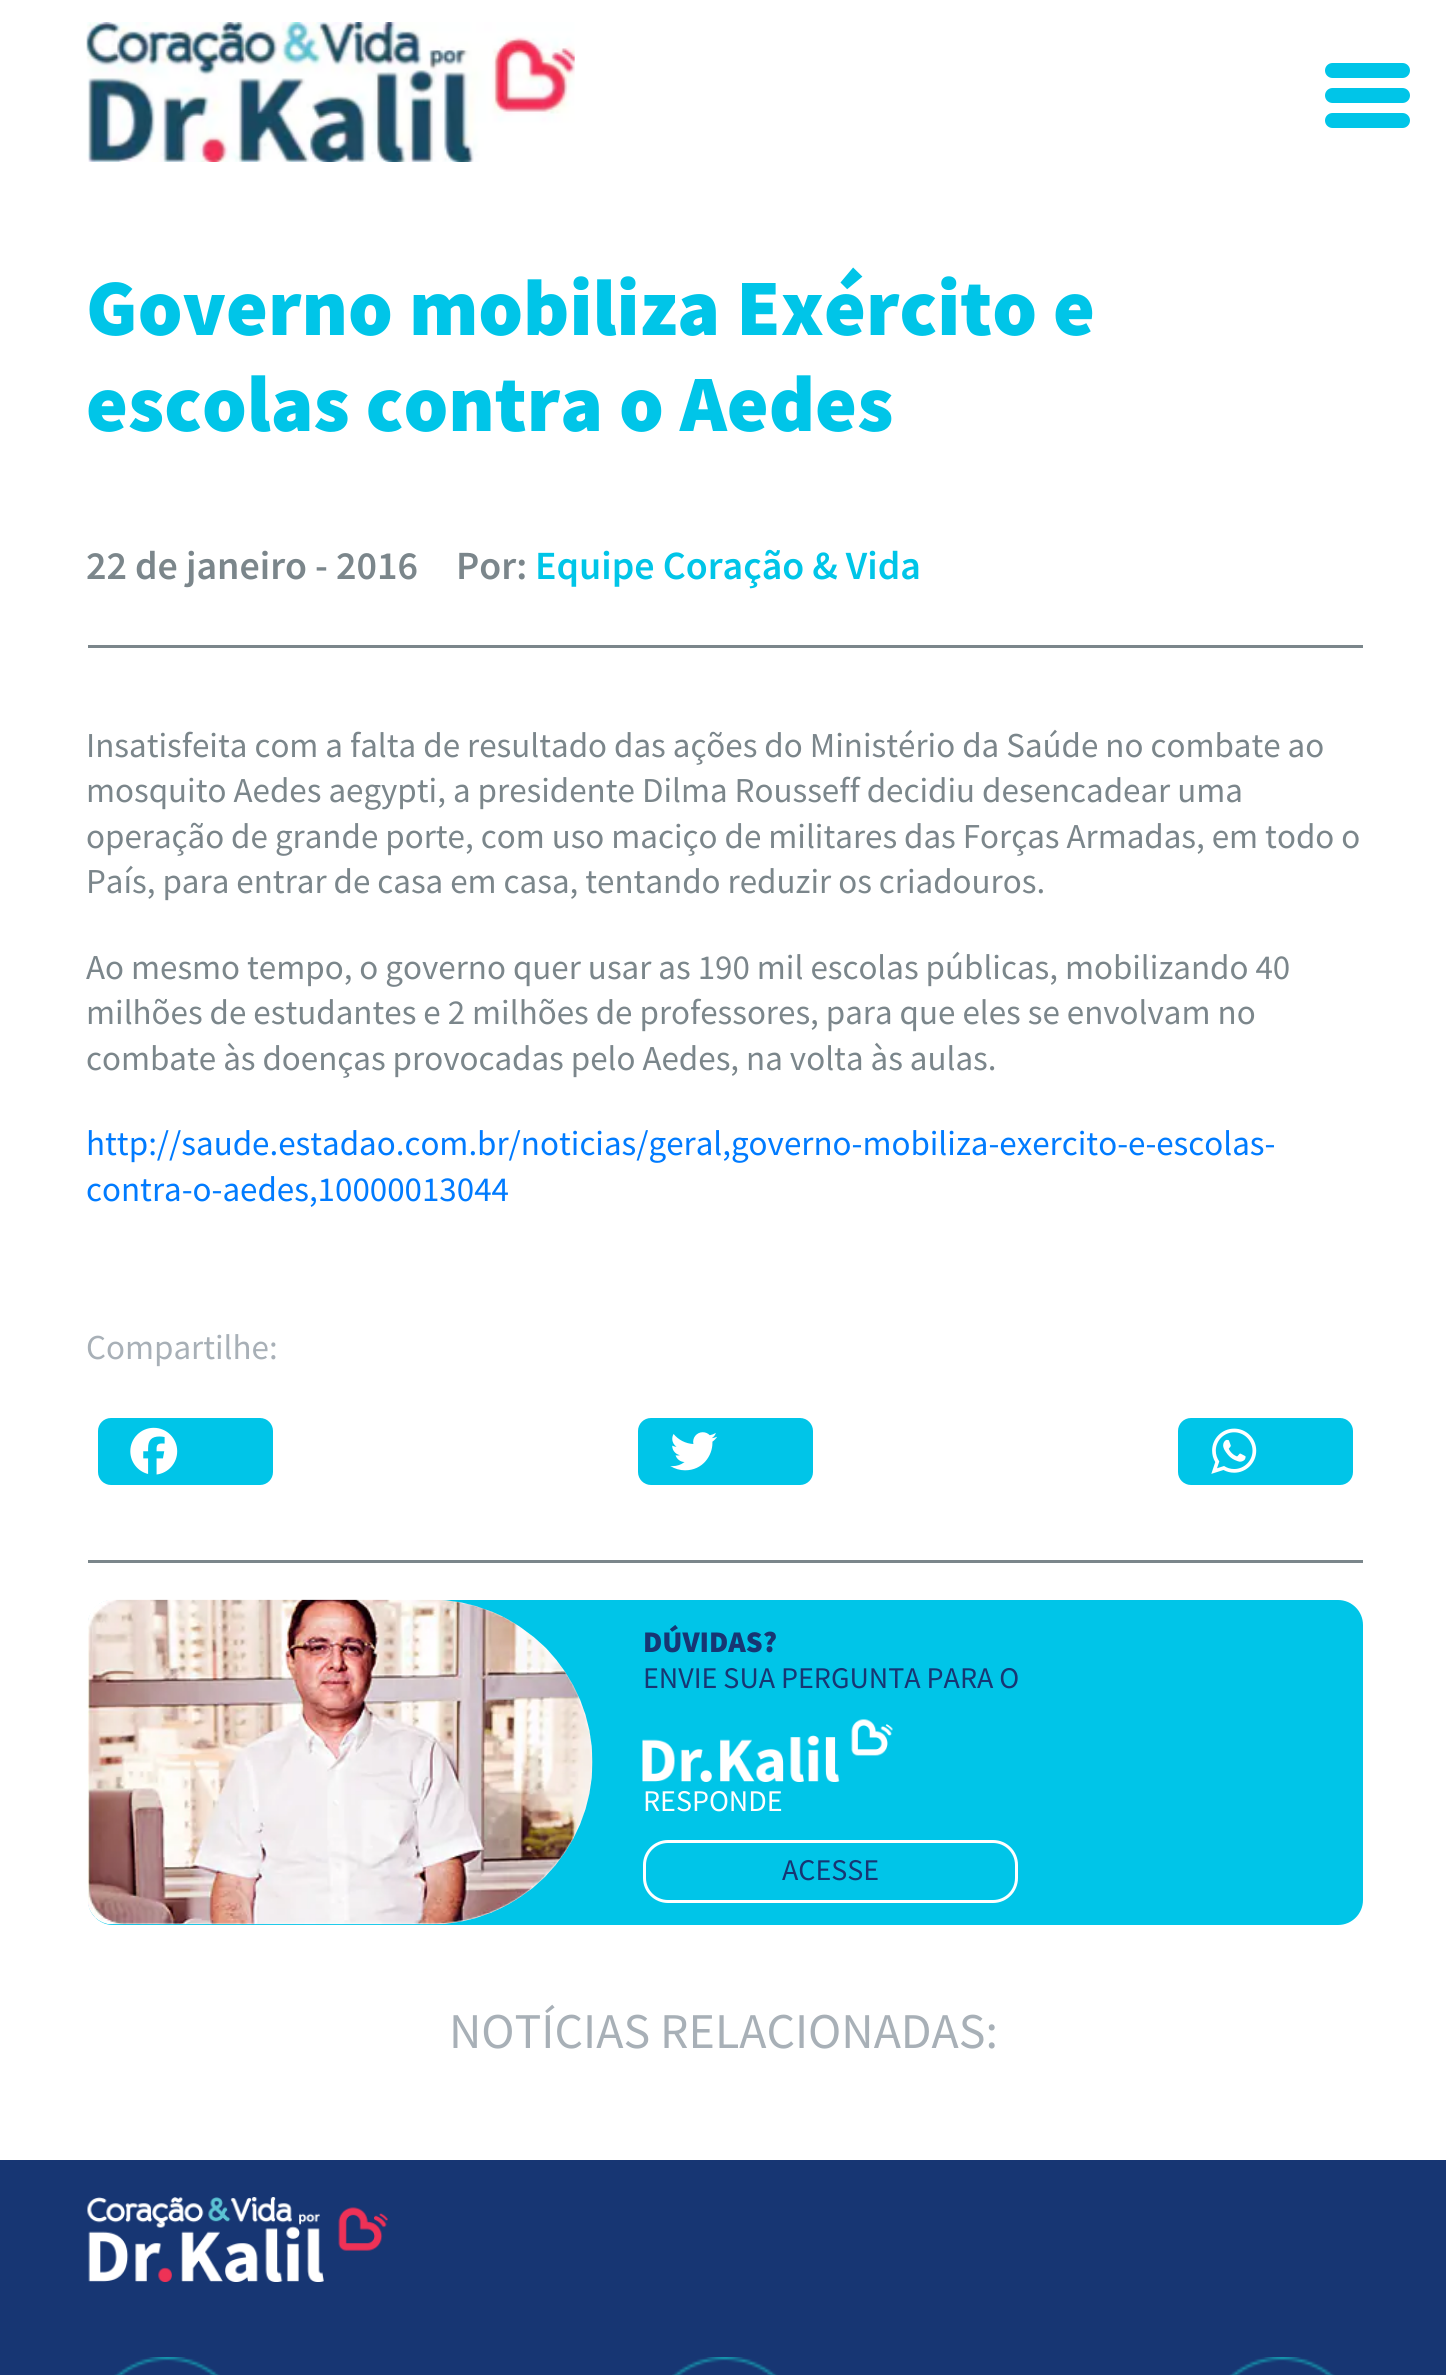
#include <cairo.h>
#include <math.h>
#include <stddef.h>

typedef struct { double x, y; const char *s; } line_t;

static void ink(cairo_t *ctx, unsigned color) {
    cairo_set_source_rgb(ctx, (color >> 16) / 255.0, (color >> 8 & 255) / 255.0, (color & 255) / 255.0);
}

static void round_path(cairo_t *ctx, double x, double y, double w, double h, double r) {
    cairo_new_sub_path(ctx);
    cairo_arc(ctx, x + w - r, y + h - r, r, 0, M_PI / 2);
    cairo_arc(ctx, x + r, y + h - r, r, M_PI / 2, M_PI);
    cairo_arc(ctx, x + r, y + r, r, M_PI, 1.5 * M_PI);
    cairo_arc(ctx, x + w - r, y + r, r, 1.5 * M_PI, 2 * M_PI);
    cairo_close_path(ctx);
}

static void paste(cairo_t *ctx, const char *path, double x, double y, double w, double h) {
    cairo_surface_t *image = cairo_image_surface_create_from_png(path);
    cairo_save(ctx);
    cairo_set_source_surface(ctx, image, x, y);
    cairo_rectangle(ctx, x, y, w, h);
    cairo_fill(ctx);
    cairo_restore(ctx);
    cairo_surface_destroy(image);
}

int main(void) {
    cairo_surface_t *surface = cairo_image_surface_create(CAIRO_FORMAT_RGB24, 1446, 2375);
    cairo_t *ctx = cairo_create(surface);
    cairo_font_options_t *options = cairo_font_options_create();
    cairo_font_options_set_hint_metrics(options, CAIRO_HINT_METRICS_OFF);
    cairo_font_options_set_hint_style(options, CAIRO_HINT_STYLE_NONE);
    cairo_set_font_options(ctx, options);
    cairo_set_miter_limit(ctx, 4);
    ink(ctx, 0xFFFFFF);
    cairo_paint(ctx);
    paste(ctx, "media/1.png", 86, 22, 489, 140);
    ink(ctx, 0x00C5E8);
    round_path(ctx, 1325, 63, 85, 15, 7.5);
    cairo_fill(ctx);
    round_path(ctx, 1325, 88, 85, 15, 7.5);
    cairo_fill(ctx);
    round_path(ctx, 1325, 113, 85, 15, 7.5);
    cairo_fill(ctx);
    cairo_select_font_face(ctx, "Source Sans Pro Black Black", CAIRO_FONT_SLANT_NORMAL, CAIRO_FONT_WEIGHT_NORMAL);
    cairo_set_font_size(ctx, 80);
    cairo_move_to(ctx, 86, 335);
    cairo_show_text(ctx, "Governo mobiliza Exército e");
    cairo_move_to(ctx, 86, 431);
    cairo_show_text(ctx, "escolas contra o Aedes");
    ink(ctx, 0x7B868B);
    cairo_rectangle(ctx, 88, 645, 1275, 3);
    cairo_fill(ctx);
    cairo_select_font_face(ctx, "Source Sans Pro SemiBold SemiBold", CAIRO_FONT_SLANT_NORMAL, CAIRO_FONT_WEIGHT_NORMAL);
    cairo_set_font_size(ctx, 40);
    cairo_move_to(ctx, 86, 579);
    cairo_show_text(ctx, "22 de janeiro - 2016");
    cairo_move_to(ctx, 456, 579);
    cairo_show_text(ctx, "Por:");
    ink(ctx, 0x00C5E8);
    cairo_move_to(ctx, 535, 579);
    cairo_show_text(ctx, "Equipe Coração & Vida");
    ink(ctx, 0x7B868B);
    cairo_rectangle(ctx, 88, 1560, 1275, 3);
    cairo_fill(ctx);
    cairo_select_font_face(ctx, "Source Sans Pro", CAIRO_FONT_SLANT_NORMAL, CAIRO_FONT_WEIGHT_NORMAL);
    cairo_set_font_size(ctx, 35);
    {
        static const line_t items[] = {
            {86, 757, "Insatisfeita com a falta de resultado das ações do Ministério da Saúde no combate ao"},
            {86, 802, "mosquito Aedes aegypti, a presidente Dilma Rousseff decidiu desencadear uma"},
            {86, 848, "operação de grande porte, com uso maciço de militares das Forças Armadas, em todo o"},
            {86, 893, "País, para entrar de casa em casa, tentando reduzir os criadouros."},
            {86, 979, "Ao mesmo tempo, o governo quer usar as 190 mil escolas públicas, mobilizando 40"},
            {86, 1024, "milhões de estudantes e 2 milhões de professores, para que eles se envolvam no"},
            {86, 1070, "combate às doenças provocadas pelo Aedes, na volta às aulas."},
        };
        for (size_t i = 0; i < sizeof items / sizeof *items; i++) {
            cairo_move_to(ctx, items[i].x, items[i].y);
            cairo_show_text(ctx, items[i].s);
        }
    }
    ink(ctx, 0x007BFF);
    cairo_move_to(ctx, 86, 1155);
    cairo_show_text(ctx, "http://saude.estadao.com.br/noticias/geral,governo-mobiliza-exercito-e-escolas-");
    cairo_move_to(ctx, 86, 1201);
    cairo_show_text(ctx, "contra-o-aedes,10000013044");
    ink(ctx, 0xA8B0B7);
    cairo_move_to(ctx, 86, 1359);
    cairo_show_text(ctx, "Compartilhe:");
    ink(ctx, 0x00C5E8);
    round_path(ctx, 98, 1418, 175, 67, 13);
    cairo_fill(ctx);
    paste(ctx, "media/2.png", 130, 1427, 48, 48);
    round_path(ctx, 638, 1418, 175, 67, 13);
    cairo_fill(ctx);
    paste(ctx, "media/3.png", 670, 1432, 47, 39);
    round_path(ctx, 1178, 1418, 175, 67, 13);
    cairo_fill(ctx);
    paste(ctx, "media/4.png", 1211, 1428, 46, 46);
    round_path(ctx, 88, 1600, 1275, 325, 25);
    cairo_fill(ctx);
    paste(ctx, "media/5.png", 87, 1599, 506, 326);
    cairo_select_font_face(ctx, "Source Sans Pro Black Black", CAIRO_FONT_SLANT_NORMAL, CAIRO_FONT_WEIGHT_NORMAL);
    cairo_set_font_size(ctx, 30);
    ink(ctx, 0x173673);
    cairo_move_to(ctx, 643, 1652);
    cairo_show_text(ctx, "DÚVIDAS?");
    cairo_select_font_face(ctx, "Source Sans Pro", CAIRO_FONT_SLANT_NORMAL, CAIRO_FONT_WEIGHT_NORMAL);
    cairo_move_to(ctx, 643, 1688);
    cairo_show_text(ctx, "ENVIE SUA PERGUNTA PARA O");
    paste(ctx, "media/6.png", 642, 1719, 251, 63);
    ink(ctx, 0xFFFFFF);
    cairo_move_to(ctx, 643, 1811);
    cairo_show_text(ctx, "RESPONDE");
    round_path(ctx, 644.5, 1841.5, 372, 60, 23.5);
    cairo_set_line_width(ctx, 3);
    cairo_stroke(ctx);
    ink(ctx, 0x173673);
    cairo_move_to(ctx, 782, 1880);
    cairo_show_text(ctx, "ACESSE");
    cairo_set_font_size(ctx, 50);
    ink(ctx, 0xA8B0B7);
    cairo_move_to(ctx, 449, 2048);
    cairo_show_text(ctx, "NOTÍCIAS RELACIONADAS:");
    ink(ctx, 0x173673);
    cairo_rectangle(ctx, 0, 2160, 1446, 215);
    cairo_fill(ctx);
    paste(ctx, "media/7.png", 87, 2197, 301, 85);
    paste(ctx, "media/8.png", 114, 2357, 106, 18);
    paste(ctx, "media/9.png", 672, 2357, 106, 18);
    paste(ctx, "media/10.png", 1229, 2357, 106, 18);
    cairo_surface_write_to_png(surface, "image.png");
    cairo_font_options_destroy(options);
    cairo_destroy(ctx);
    cairo_surface_destroy(surface);
    return 0;
}
